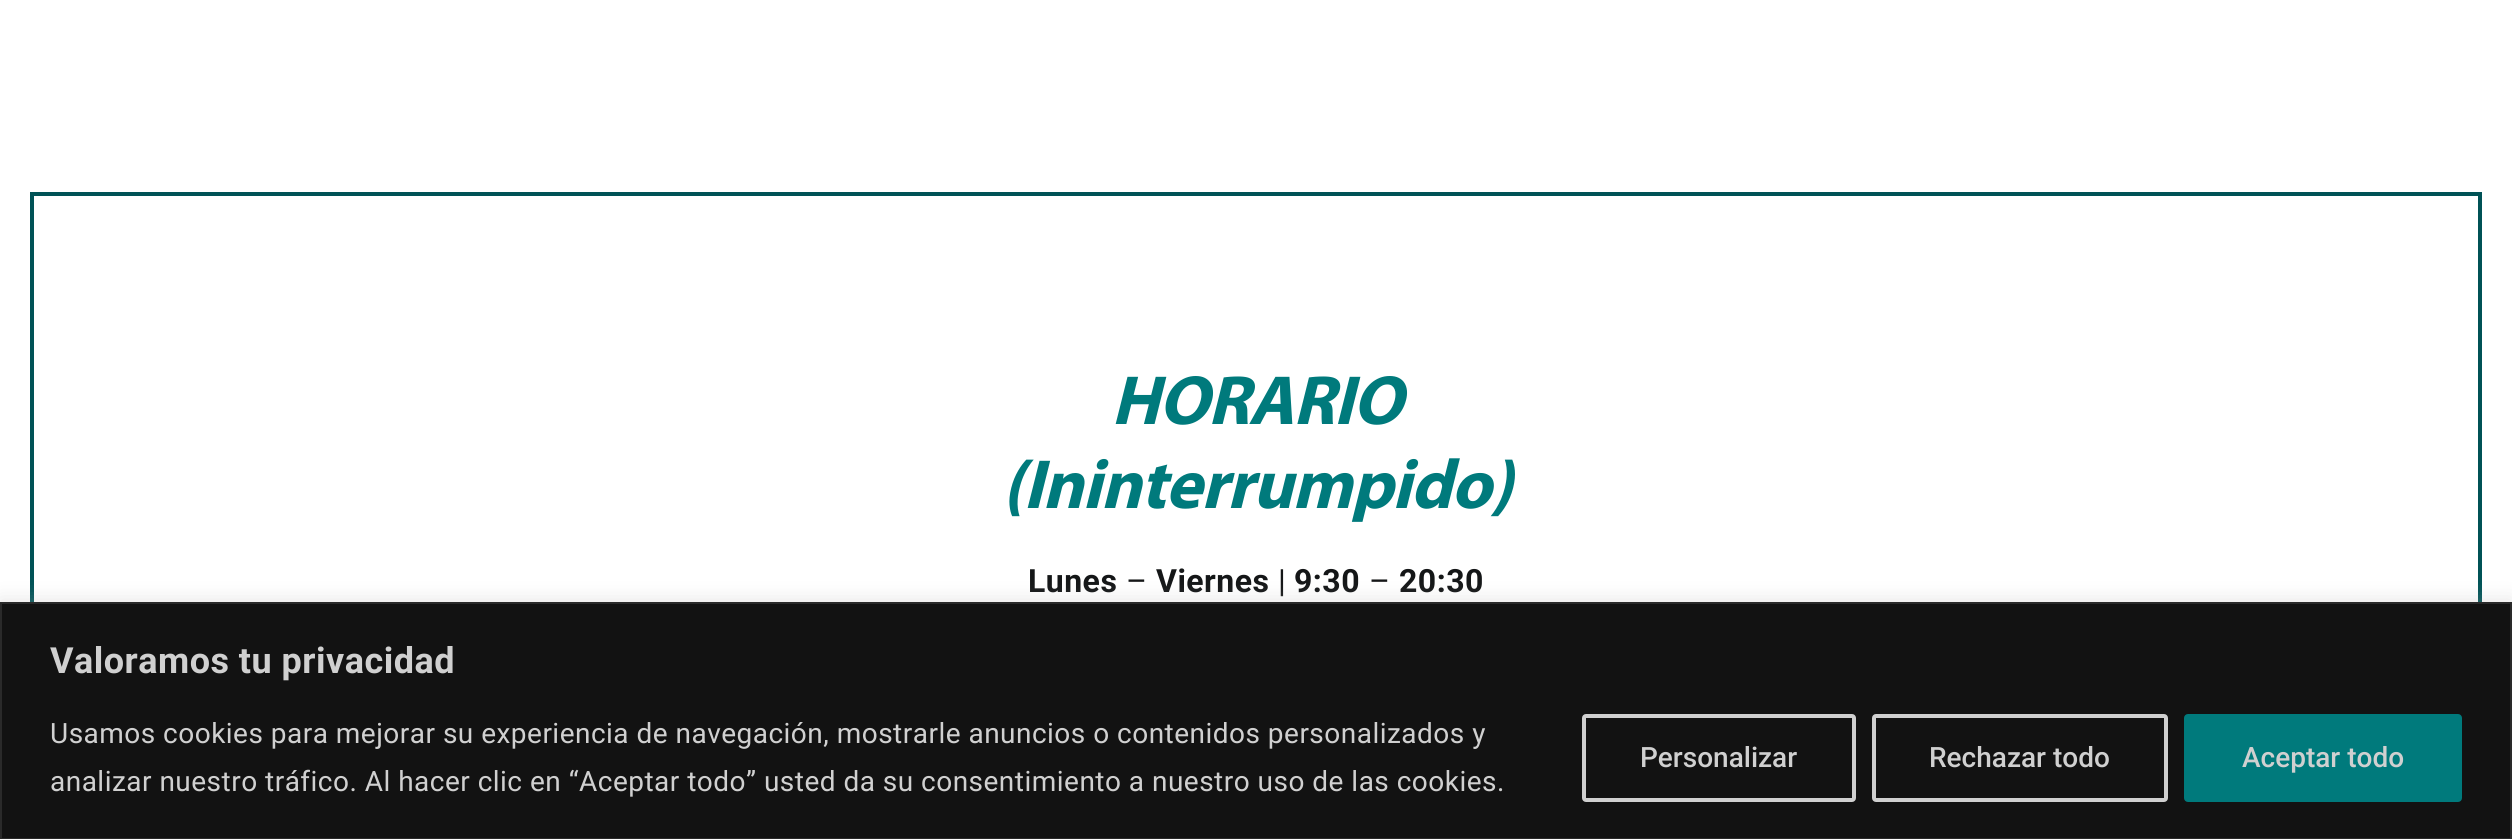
#include <cairo.h>
#include <math.h>
#include <stddef.h>


static void ink(cairo_t *ctx, unsigned color) {
    cairo_set_source_rgb(ctx, (color >> 16) / 255.0, (color >> 8 & 255) / 255.0, (color & 255) / 255.0);
}

static void write_spaced(cairo_t *ctx, double x, double y, const char *s, double letter, double word) {
    cairo_move_to(ctx, x, y);
    while (*s) {
        char ch[5] = {0};
        int n = 0;
        do ch[n++] = *s++; while ((*s & 0xC0) == 0x80);
        cairo_show_text(ctx, ch);
        cairo_rel_move_to(ctx, letter + word * (*ch == ' '), 0);
    }
}

static void round_path(cairo_t *ctx, double x, double y, double w, double h, double r) {
    cairo_new_sub_path(ctx);
    cairo_arc(ctx, x + w - r, y + h - r, r, 0, M_PI / 2);
    cairo_arc(ctx, x + r, y + h - r, r, M_PI / 2, M_PI);
    cairo_arc(ctx, x + r, y + r, r, M_PI, 1.5 * M_PI);
    cairo_arc(ctx, x + w - r, y + r, r, 1.5 * M_PI, 2 * M_PI);
    cairo_close_path(ctx);
}

static void blur_box(cairo_t *ctx, double x, double y, double w, double h, double r, double blur, double alpha) {
    cairo_push_group_with_content(ctx, CAIRO_CONTENT_ALPHA);
    cairo_set_operator(ctx, CAIRO_OPERATOR_SOURCE);
    for (int i = 15; i >= -15 && fmin(w, h) + blur * i / 3 > 0; i -= 2) {
        double e = blur * i / 6;
        cairo_set_source_rgba(ctx, 0, 0, 0, alpha * erfc((i - 1) / 8.5) / 2);
        round_path(ctx, x - e, y - e, w + 2 * e, h + 2 * e, fmax(0, fmin(r + e + blur * .6, fmin(w, h) / 2 + e)));
        cairo_fill(ctx);
    }
    cairo_pattern_t *soft = cairo_pop_group(ctx);
    cairo_mask(ctx, soft);
    cairo_pattern_destroy(soft);
}

int main(void) {
    cairo_surface_t *surface = cairo_image_surface_create(CAIRO_FORMAT_RGB24, 2512, 839);
    cairo_t *ctx = cairo_create(surface);
    cairo_font_options_t *options = cairo_font_options_create();
    cairo_font_options_set_hint_metrics(options, CAIRO_HINT_METRICS_OFF);
    cairo_font_options_set_hint_style(options, CAIRO_HINT_STYLE_NONE);
    cairo_set_font_options(ctx, options);
    cairo_set_miter_limit(ctx, 4);
    ink(ctx, 0xFFFFFF);
    cairo_paint(ctx);
    cairo_rectangle(ctx, 32, 194, 2448, 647);
    ink(ctx, 0x005256);
    cairo_set_line_width(ctx, 4);
    cairo_stroke(ctx);
    cairo_select_font_face(ctx, "Myriad", CAIRO_FONT_SLANT_ITALIC, CAIRO_FONT_WEIGHT_BOLD);
    cairo_set_font_size(ctx, 70);
    ink(ctx, 0x007A7C);
    write_spaced(ctx, 1111, 424, "HORARIO", -1, 0);
    write_spaced(ctx, 1002, 508, "(Ininterrumpido)", -1, 0);
    cairo_select_font_face(ctx, "Roboto", CAIRO_FONT_SLANT_NORMAL, CAIRO_FONT_WEIGHT_BOLD);
    cairo_set_font_size(ctx, 32);
    ink(ctx, 0x141617);
    write_spaced(ctx, 1028, 592, "Lunes", 0.48, 0);
    cairo_select_font_face(ctx, "Roboto", CAIRO_FONT_SLANT_NORMAL, CAIRO_FONT_WEIGHT_NORMAL);
    write_spaced(ctx, 1126, 592, "–", 0.48, 0);
    cairo_select_font_face(ctx, "Roboto", CAIRO_FONT_SLANT_NORMAL, CAIRO_FONT_WEIGHT_BOLD);
    write_spaced(ctx, 1156, 592, "Viernes", 0.48, 0);
    cairo_select_font_face(ctx, "Roboto", CAIRO_FONT_SLANT_NORMAL, CAIRO_FONT_WEIGHT_NORMAL);
    write_spaced(ctx, 1278, 592, "|", 0.48, 0);
    cairo_select_font_face(ctx, "Roboto", CAIRO_FONT_SLANT_NORMAL, CAIRO_FONT_WEIGHT_BOLD);
    write_spaced(ctx, 1294, 592, "9:30", 0.48, 0);
    cairo_select_font_face(ctx, "Roboto", CAIRO_FONT_SLANT_NORMAL, CAIRO_FONT_WEIGHT_NORMAL);
    write_spaced(ctx, 1369, 592, "–", 0.48, 0);
    cairo_select_font_face(ctx, "Roboto", CAIRO_FONT_SLANT_NORMAL, CAIRO_FONT_WEIGHT_BOLD);
    write_spaced(ctx, 1399, 592, "20:30", 0.48, 0);
    ink(ctx, 0xACABAB);
    blur_box(ctx, 0, 600, 2512, 238, 0, 10, 0.3);
    ink(ctx, 0x121212);
    cairo_rectangle(ctx, 1, 603, 2510, 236);
    cairo_fill_preserve(ctx);
    ink(ctx, 0x2A2A2A);
    cairo_set_line_width(ctx, 2);
    cairo_stroke(ctx);
    cairo_set_font_size(ctx, 36);
    ink(ctx, 0xD0D0D0);
    write_spaced(ctx, 50, 673, "Valoramos tu privacidad", 0.48, 0);
    cairo_select_font_face(ctx, "Roboto", CAIRO_FONT_SLANT_NORMAL, CAIRO_FONT_WEIGHT_NORMAL);
    cairo_set_font_size(ctx, 28);
    write_spaced(ctx, 50, 743, "Usamos cookies para mejorar su experiencia de navegación, mostrarle anuncios o contenidos personalizados y", 0.48, 0);
    write_spaced(ctx, 50, 791, "analizar nuestro tráfico. Al hacer clic en “Aceptar todo” usted da su consentimiento a nuestro uso de las cookies.", 0.48, 0);
    round_path(ctx, 1584, 716, 270, 84, 2);
    cairo_set_line_width(ctx, 4);
    cairo_stroke(ctx);
    cairo_select_font_face(ctx, "Roboto Medium", CAIRO_FONT_SLANT_NORMAL, CAIRO_FONT_WEIGHT_NORMAL);
    cairo_move_to(ctx, 1640, 767);
    cairo_show_text(ctx, "Personalizar");
    round_path(ctx, 1874, 716, 292, 84, 2);
    cairo_stroke(ctx);
    cairo_move_to(ctx, 1929, 767);
    cairo_show_text(ctx, "Rechazar todo");
    ink(ctx, 0x007A7C);
    round_path(ctx, 2186, 716, 274, 84, 2);
    cairo_fill_preserve(ctx);
    cairo_stroke(ctx);
    ink(ctx, 0xD0D0D0);
    cairo_move_to(ctx, 2242, 767);
    cairo_show_text(ctx, "Aceptar todo");
    cairo_surface_write_to_png(surface, "image.png");
    cairo_font_options_destroy(options);
    cairo_destroy(ctx);
    cairo_surface_destroy(surface);
    return 0;
}
